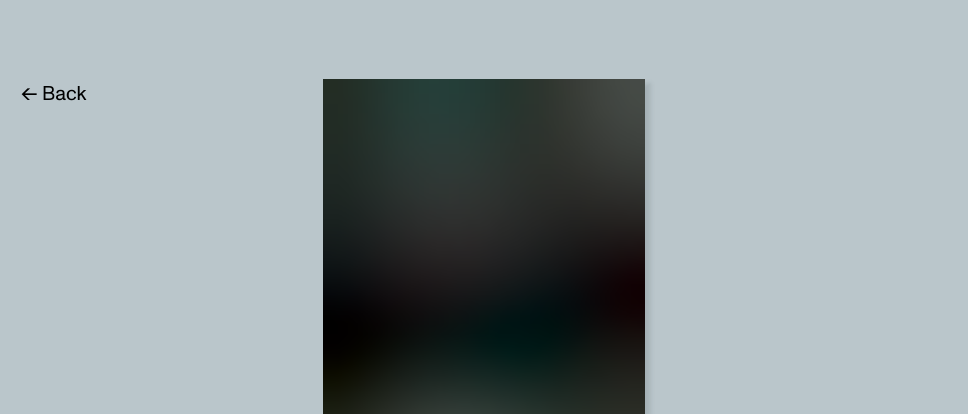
#include <cairo.h>
#include <math.h>
#include <stddef.h>


static void ink(cairo_t *ctx, unsigned color) {
    cairo_set_source_rgb(ctx, (color >> 16) / 255.0, (color >> 8 & 255) / 255.0, (color & 255) / 255.0);
}

static void round_path(cairo_t *ctx, double x, double y, double w, double h, double r) {
    cairo_new_sub_path(ctx);
    cairo_arc(ctx, x + w - r, y + h - r, r, 0, M_PI / 2);
    cairo_arc(ctx, x + r, y + h - r, r, M_PI / 2, M_PI);
    cairo_arc(ctx, x + r, y + r, r, M_PI, 1.5 * M_PI);
    cairo_arc(ctx, x + w - r, y + r, r, 1.5 * M_PI, 2 * M_PI);
    cairo_close_path(ctx);
}

static void blur_box(cairo_t *ctx, double x, double y, double w, double h, double r, double blur, double alpha) {
    cairo_push_group_with_content(ctx, CAIRO_CONTENT_ALPHA);
    cairo_set_operator(ctx, CAIRO_OPERATOR_SOURCE);
    for (int i = 15; i >= -15 && fmin(w, h) + blur * i / 3 > 0; i -= 2) {
        double e = blur * i / 6;
        cairo_set_source_rgba(ctx, 0, 0, 0, alpha * erfc((i - 1) / 8.5) / 2);
        round_path(ctx, x - e, y - e, w + 2 * e, h + 2 * e, fmax(0, fmin(r + e + blur * .6, fmin(w, h) / 2 + e)));
        cairo_fill(ctx);
    }
    cairo_pattern_t *soft = cairo_pop_group(ctx);
    cairo_mask(ctx, soft);
    cairo_pattern_destroy(soft);
}

static void paste(cairo_t *ctx, const char *path, double x, double y, double w, double h) {
    cairo_surface_t *image = cairo_image_surface_create_from_png(path);
    cairo_save(ctx);
    cairo_set_source_surface(ctx, image, x, y);
    cairo_rectangle(ctx, x, y, w, h);
    cairo_fill(ctx);
    cairo_restore(ctx);
    cairo_surface_destroy(image);
}

int main(void) {
    cairo_surface_t *surface = cairo_image_surface_create(CAIRO_FORMAT_RGB24, 968, 414);
    cairo_t *ctx = cairo_create(surface);
    cairo_font_options_t *options = cairo_font_options_create();
    cairo_font_options_set_hint_metrics(options, CAIRO_HINT_METRICS_OFF);
    cairo_font_options_set_hint_style(options, CAIRO_HINT_STYLE_NONE);
    cairo_set_font_options(ctx, options);
    cairo_set_miter_limit(ctx, 4);
    ink(ctx, 0xBAC6CB);
    cairo_paint(ctx);
    paste(ctx, "media/1.png", 21, 88, 16, 12);
    cairo_select_font_face(ctx, "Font", CAIRO_FONT_SLANT_NORMAL, CAIRO_FONT_WEIGHT_NORMAL);
    cairo_set_font_size(ctx, 20);
    ink(ctx, 0x000000);
    cairo_move_to(ctx, 42, 100);
    cairo_show_text(ctx, "Back");
    ink(ctx, 0x1E2C30);
    blur_box(ctx, 328, 84, 322, 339, 0, 3, 0.15);
    paste(ctx, "media/2.png", 323, 79, 322, 335);
    cairo_surface_write_to_png(surface, "image.png");
    cairo_font_options_destroy(options);
    cairo_destroy(ctx);
    cairo_surface_destroy(surface);
    return 0;
}
